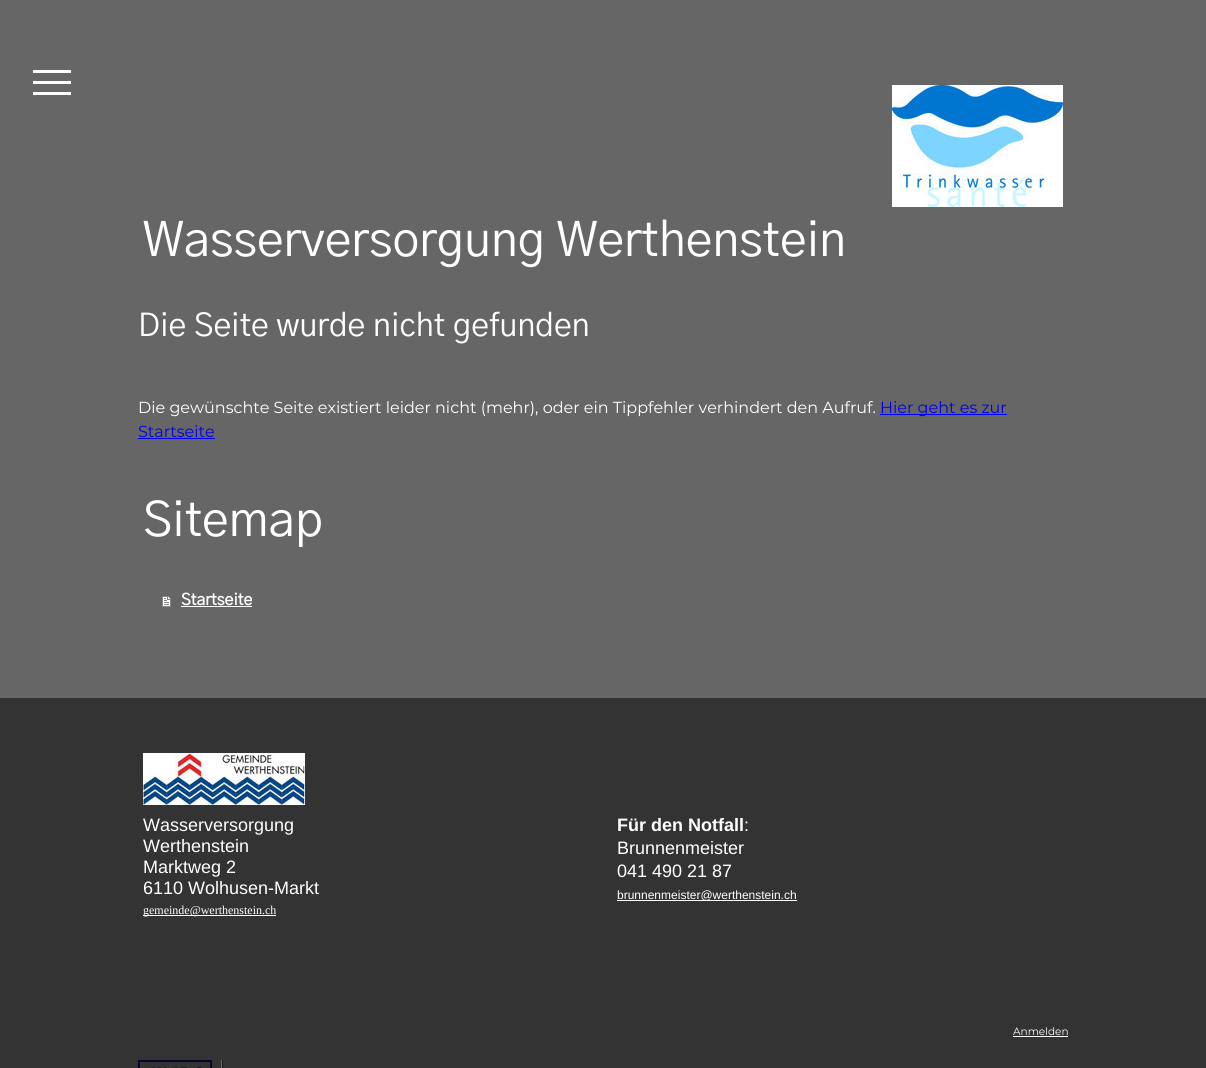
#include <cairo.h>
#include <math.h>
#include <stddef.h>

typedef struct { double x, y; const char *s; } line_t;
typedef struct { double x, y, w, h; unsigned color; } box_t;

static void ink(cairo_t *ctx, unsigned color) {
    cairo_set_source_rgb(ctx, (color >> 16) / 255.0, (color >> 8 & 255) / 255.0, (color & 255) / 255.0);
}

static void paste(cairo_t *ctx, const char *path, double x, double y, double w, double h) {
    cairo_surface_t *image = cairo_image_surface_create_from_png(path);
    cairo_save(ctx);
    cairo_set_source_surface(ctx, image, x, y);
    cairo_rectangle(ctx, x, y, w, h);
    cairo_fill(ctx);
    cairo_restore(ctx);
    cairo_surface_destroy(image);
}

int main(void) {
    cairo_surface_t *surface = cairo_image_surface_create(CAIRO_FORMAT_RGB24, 1206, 1068);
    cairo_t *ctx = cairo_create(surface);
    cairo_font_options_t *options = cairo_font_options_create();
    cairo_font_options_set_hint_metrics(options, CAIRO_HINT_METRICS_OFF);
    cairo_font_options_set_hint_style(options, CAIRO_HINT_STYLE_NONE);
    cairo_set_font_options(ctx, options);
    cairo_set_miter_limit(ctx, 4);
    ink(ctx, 0x666666);
    cairo_paint(ctx);
    {
        static const box_t items[] = {
            {33, 81, 38, 3, 0xFFFFFF},
            {33, 70, 38, 3, 0xFFFFFF},
            {33, 92, 38, 3, 0xFFFFFF},
        };
        for (size_t i = 0; i < sizeof items / sizeof *items; i++) {
            ink(ctx, items[i].color);
            cairo_rectangle(ctx, items[i].x, items[i].y, items[i].w, items[i].h);
            cairo_fill(ctx);
        }
    }
    paste(ctx, "media/1.png", 892, 85, 171, 122);
    cairo_select_font_face(ctx, "Gothic A1", CAIRO_FONT_SLANT_NORMAL, CAIRO_FONT_WEIGHT_NORMAL);
    cairo_set_font_size(ctx, 48);
    cairo_move_to(ctx, 143, 256);
    cairo_show_text(ctx, "Wasserversorgung Werthenstein");
    cairo_set_font_size(ctx, 32);
    cairo_move_to(ctx, 138, 336);
    cairo_show_text(ctx, "Die Seite wurde nicht gefunden");
    cairo_select_font_face(ctx, "Montserrat", CAIRO_FONT_SLANT_NORMAL, CAIRO_FONT_WEIGHT_NORMAL);
    cairo_set_font_size(ctx, 16);
    cairo_move_to(ctx, 138, 413);
    cairo_show_text(ctx, "Die gewünschte Seite existiert leider nicht (mehr), oder ein Tippfehler verhindert den Aufruf.");
    ink(ctx, 0x0000EE);
    cairo_rectangle(ctx, 880, 414, 127, 1);
    cairo_fill(ctx);
    cairo_move_to(ctx, 880, 413);
    cairo_show_text(ctx, "Hier geht es zur");
    cairo_move_to(ctx, 138, 437);
    cairo_show_text(ctx, "Startseite");
    cairo_rectangle(ctx, 138, 438, 77, 1);
    cairo_fill(ctx);
    cairo_select_font_face(ctx, "Gothic A1", CAIRO_FONT_SLANT_NORMAL, CAIRO_FONT_WEIGHT_NORMAL);
    cairo_set_font_size(ctx, 48);
    ink(ctx, 0xFFFFFF);
    cairo_move_to(ctx, 143, 536);
    cairo_show_text(ctx, "Sitemap");
    paste(ctx, "media/2.png", 162, 596, 9, 11);
    cairo_select_font_face(ctx, "Gothic A1", CAIRO_FONT_SLANT_NORMAL, CAIRO_FONT_WEIGHT_BOLD);
    cairo_set_font_size(ctx, 16);
    cairo_move_to(ctx, 181, 605);
    cairo_show_text(ctx, "Startseite");
    cairo_rectangle(ctx, 181, 606, 71, 1);
    cairo_fill(ctx);
    ink(ctx, 0x333333);
    cairo_rectangle(ctx, 0, 698, 1206, 370);
    cairo_fill(ctx);
    paste(ctx, "media/3.png", 143, 753, 162, 52);
    cairo_select_font_face(ctx, "Liberation Sans", CAIRO_FONT_SLANT_NORMAL, CAIRO_FONT_WEIGHT_NORMAL);
    cairo_set_font_size(ctx, 18);
    ink(ctx, 0xFFFFFF);
    {
        static const line_t items[] = {
            {143, 831, "Wasserversorgung"},
            {143, 852, "Werthenstein"},
            {143, 873, "Marktweg 2"},
            {143, 894, "6110 Wolhusen-Markt"},
        };
        for (size_t i = 0; i < sizeof items / sizeof *items; i++) {
            cairo_move_to(ctx, items[i].x, items[i].y);
            cairo_show_text(ctx, items[i].s);
        }
    }
    cairo_rectangle(ctx, 143, 915, 133, 1);
    cairo_fill(ctx);
    cairo_select_font_face(ctx, "Liberation Serif", CAIRO_FONT_SLANT_NORMAL, CAIRO_FONT_WEIGHT_NORMAL);
    cairo_set_font_size(ctx, 12);
    cairo_move_to(ctx, 143, 914);
    cairo_show_text(ctx, "gemeinde@werthenstein.ch");
    cairo_select_font_face(ctx, "Liberation Sans", CAIRO_FONT_SLANT_NORMAL, CAIRO_FONT_WEIGHT_BOLD);
    cairo_set_font_size(ctx, 18);
    cairo_move_to(ctx, 617, 831);
    cairo_show_text(ctx, "Für den Notfall");
    cairo_select_font_face(ctx, "Liberation Sans", CAIRO_FONT_SLANT_NORMAL, CAIRO_FONT_WEIGHT_NORMAL);
    {
        static const line_t items[] = {
            {744, 831, ":"},
            {617, 854, "Brunnenmeister"},
            {617, 877, "041 490 21 87"},
        };
        for (size_t i = 0; i < sizeof items / sizeof *items; i++) {
            cairo_move_to(ctx, items[i].x, items[i].y);
            cairo_show_text(ctx, items[i].s);
        }
    }
    cairo_rectangle(ctx, 617, 900, 180, 1);
    cairo_fill(ctx);
    cairo_set_font_size(ctx, 12);
    cairo_move_to(ctx, 617, 899);
    cairo_show_text(ctx, "brunnenmeister@werthenstein.ch");
    cairo_select_font_face(ctx, "Montserrat", CAIRO_FONT_SLANT_NORMAL, CAIRO_FONT_WEIGHT_NORMAL);
    cairo_set_font_size(ctx, 10.5);
    cairo_move_to(ctx, 1013, 1035);
    cairo_show_text(ctx, "Anmelden");
    cairo_rectangle(ctx, 1013, 1036, 55, 1);
    cairo_fill(ctx);
    paste(ctx, "media/4.png", 138, 1060, 74, 8);
    ink(ctx, 0x707070);
    cairo_rectangle(ctx, 221, 1060, 1, 8);
    cairo_fill(ctx);
    ink(ctx, 0x1A1A1A);
    cairo_rectangle(ctx, 222, 1060, 1, 8);
    cairo_fill(ctx);
    cairo_surface_write_to_png(surface, "image.png");
    cairo_font_options_destroy(options);
    cairo_destroy(ctx);
    cairo_surface_destroy(surface);
    return 0;
}
